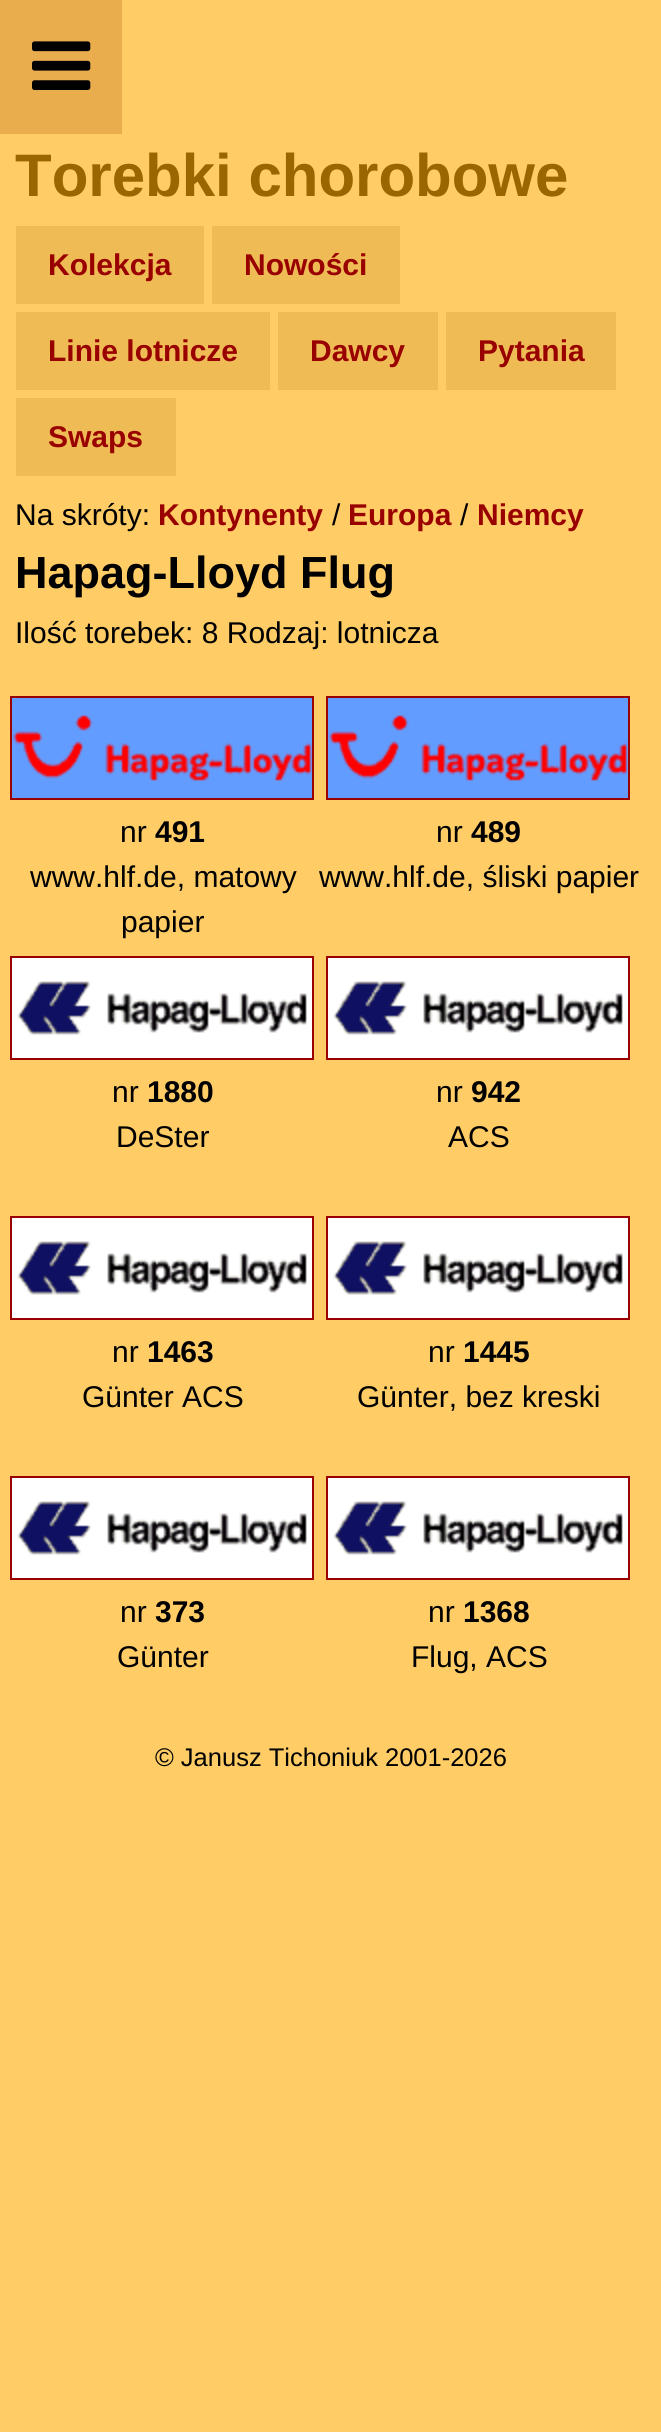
#include <cairo.h>
#include <math.h>
#include <stddef.h>


static void ink(cairo_t *ctx, unsigned color) {
    cairo_set_source_rgb(ctx, (color >> 16) / 255.0, (color >> 8 & 255) / 255.0, (color & 255) / 255.0);
}

static void paste(cairo_t *ctx, const char *path, double x, double y, double w, double h) {
    cairo_surface_t *image = cairo_image_surface_create_from_png(path);
    cairo_save(ctx);
    cairo_set_source_surface(ctx, image, x, y);
    cairo_rectangle(ctx, x, y, w, h);
    cairo_fill(ctx);
    cairo_restore(ctx);
    cairo_surface_destroy(image);
}

int main(void) {
    cairo_surface_t *surface = cairo_image_surface_create(CAIRO_FORMAT_RGB24, 661, 2432);
    cairo_t *ctx = cairo_create(surface);
    cairo_font_options_t *options = cairo_font_options_create();
    cairo_font_options_set_hint_metrics(options, CAIRO_HINT_METRICS_OFF);
    cairo_font_options_set_hint_style(options, CAIRO_HINT_STYLE_NONE);
    cairo_set_font_options(ctx, options);
    cairo_set_miter_limit(ctx, 4);
    ink(ctx, 0xFFCC66);
    cairo_paint(ctx);
    ink(ctx, 0xE9AD4E);
    cairo_rectangle(ctx, 0, 0, 122, 134);
    cairo_fill(ctx);
    paste(ctx, "media/1.png", 32, 41, 59, 49);
    cairo_select_font_face(ctx, "Liberation Sans", CAIRO_FONT_SLANT_NORMAL, CAIRO_FONT_WEIGHT_BOLD);
    cairo_set_font_size(ctx, 60);
    ink(ctx, 0x996600);
    cairo_move_to(ctx, 15, 196);
    cairo_show_text(ctx, "Torebki chorobowe");
    ink(ctx, 0xEEBB55);
    cairo_rectangle(ctx, 16, 226, 188, 78);
    cairo_fill(ctx);
    cairo_set_font_size(ctx, 30);
    ink(ctx, 0x990000);
    cairo_move_to(ctx, 48, 275);
    cairo_show_text(ctx, "Kolekcja");
    ink(ctx, 0xEEBB55);
    cairo_rectangle(ctx, 212, 226, 188, 78);
    cairo_fill(ctx);
    ink(ctx, 0x990000);
    cairo_move_to(ctx, 244, 275);
    cairo_show_text(ctx, "Nowości");
    ink(ctx, 0xEEBB55);
    cairo_rectangle(ctx, 16, 312, 254, 78);
    cairo_fill(ctx);
    ink(ctx, 0x990000);
    cairo_move_to(ctx, 48, 361);
    cairo_show_text(ctx, "Linie lotnicze");
    ink(ctx, 0xEEBB55);
    cairo_rectangle(ctx, 278, 312, 160, 78);
    cairo_fill(ctx);
    ink(ctx, 0x990000);
    cairo_move_to(ctx, 310, 361);
    cairo_show_text(ctx, "Dawcy");
    ink(ctx, 0xEEBB55);
    cairo_rectangle(ctx, 446, 312, 170, 78);
    cairo_fill(ctx);
    ink(ctx, 0x990000);
    cairo_move_to(ctx, 478, 361);
    cairo_show_text(ctx, "Pytania");
    ink(ctx, 0xEEBB55);
    cairo_rectangle(ctx, 16, 398, 160, 78);
    cairo_fill(ctx);
    ink(ctx, 0x990000);
    cairo_move_to(ctx, 48, 447);
    cairo_show_text(ctx, "Swaps");
    cairo_select_font_face(ctx, "Liberation Sans", CAIRO_FONT_SLANT_NORMAL, CAIRO_FONT_WEIGHT_NORMAL);
    ink(ctx, 0x000000);
    cairo_move_to(ctx, 15, 525);
    cairo_show_text(ctx, "Na skróty:");
    cairo_select_font_face(ctx, "Liberation Sans", CAIRO_FONT_SLANT_NORMAL, CAIRO_FONT_WEIGHT_BOLD);
    ink(ctx, 0x990000);
    cairo_move_to(ctx, 158, 525);
    cairo_show_text(ctx, "Kontynenty");
    cairo_select_font_face(ctx, "Liberation Sans", CAIRO_FONT_SLANT_NORMAL, CAIRO_FONT_WEIGHT_NORMAL);
    ink(ctx, 0x000000);
    cairo_move_to(ctx, 332, 525);
    cairo_show_text(ctx, "/");
    cairo_select_font_face(ctx, "Liberation Sans", CAIRO_FONT_SLANT_NORMAL, CAIRO_FONT_WEIGHT_BOLD);
    ink(ctx, 0x990000);
    cairo_move_to(ctx, 348, 525);
    cairo_show_text(ctx, "Europa");
    cairo_select_font_face(ctx, "Liberation Sans", CAIRO_FONT_SLANT_NORMAL, CAIRO_FONT_WEIGHT_NORMAL);
    ink(ctx, 0x000000);
    cairo_move_to(ctx, 460, 525);
    cairo_show_text(ctx, "/");
    cairo_select_font_face(ctx, "Liberation Sans", CAIRO_FONT_SLANT_NORMAL, CAIRO_FONT_WEIGHT_BOLD);
    ink(ctx, 0x990000);
    cairo_move_to(ctx, 477, 525);
    cairo_show_text(ctx, "Niemcy");
    cairo_set_font_size(ctx, 45);
    ink(ctx, 0x000000);
    cairo_move_to(ctx, 15, 588);
    cairo_show_text(ctx, "Hapag-Lloyd Flug");
    cairo_select_font_face(ctx, "Liberation Sans", CAIRO_FONT_SLANT_NORMAL, CAIRO_FONT_WEIGHT_NORMAL);
    cairo_set_font_size(ctx, 30);
    cairo_move_to(ctx, 15, 643);
    cairo_show_text(ctx, "Ilość torebek: 8 Rodzaj: lotnicza");
    cairo_rectangle(ctx, 11, 697, 302, 102);
    ink(ctx, 0x990000);
    cairo_stroke(ctx);
    paste(ctx, "media/2.png", 12, 698, 300, 100);
    ink(ctx, 0x000000);
    cairo_move_to(ctx, 120, 842);
    cairo_show_text(ctx, "nr");
    cairo_select_font_face(ctx, "Liberation Sans", CAIRO_FONT_SLANT_NORMAL, CAIRO_FONT_WEIGHT_BOLD);
    cairo_move_to(ctx, 155, 842);
    cairo_show_text(ctx, "491");
    cairo_select_font_face(ctx, "Liberation Sans", CAIRO_FONT_SLANT_NORMAL, CAIRO_FONT_WEIGHT_NORMAL);
    cairo_move_to(ctx, 30, 887);
    cairo_show_text(ctx, "www.hlf.de, matowy");
    cairo_move_to(ctx, 121, 932);
    cairo_show_text(ctx, "papier");
    cairo_rectangle(ctx, 327, 697, 302, 102);
    ink(ctx, 0x990000);
    cairo_stroke(ctx);
    paste(ctx, "media/2.png", 328, 698, 300, 100);
    ink(ctx, 0x000000);
    cairo_move_to(ctx, 436, 842);
    cairo_show_text(ctx, "nr");
    cairo_select_font_face(ctx, "Liberation Sans", CAIRO_FONT_SLANT_NORMAL, CAIRO_FONT_WEIGHT_BOLD);
    cairo_move_to(ctx, 471, 842);
    cairo_show_text(ctx, "489");
    cairo_select_font_face(ctx, "Liberation Sans", CAIRO_FONT_SLANT_NORMAL, CAIRO_FONT_WEIGHT_NORMAL);
    cairo_move_to(ctx, 319, 887);
    cairo_show_text(ctx, "www.hlf.de, śliski papier");
    cairo_rectangle(ctx, 11, 957, 302, 102);
    ink(ctx, 0x990000);
    cairo_stroke(ctx);
    paste(ctx, "media/3.png", 12, 958, 300, 100);
    ink(ctx, 0x000000);
    cairo_move_to(ctx, 112, 1102);
    cairo_show_text(ctx, "nr");
    cairo_select_font_face(ctx, "Liberation Sans", CAIRO_FONT_SLANT_NORMAL, CAIRO_FONT_WEIGHT_BOLD);
    cairo_move_to(ctx, 147, 1102);
    cairo_show_text(ctx, "1880");
    cairo_select_font_face(ctx, "Liberation Sans", CAIRO_FONT_SLANT_NORMAL, CAIRO_FONT_WEIGHT_NORMAL);
    cairo_move_to(ctx, 116, 1147);
    cairo_show_text(ctx, "DeSter");
    cairo_rectangle(ctx, 327, 957, 302, 102);
    ink(ctx, 0x990000);
    cairo_stroke(ctx);
    paste(ctx, "media/3.png", 328, 958, 300, 100);
    ink(ctx, 0x000000);
    cairo_move_to(ctx, 436, 1102);
    cairo_show_text(ctx, "nr");
    cairo_select_font_face(ctx, "Liberation Sans", CAIRO_FONT_SLANT_NORMAL, CAIRO_FONT_WEIGHT_BOLD);
    cairo_move_to(ctx, 471, 1102);
    cairo_show_text(ctx, "942");
    cairo_select_font_face(ctx, "Liberation Sans", CAIRO_FONT_SLANT_NORMAL, CAIRO_FONT_WEIGHT_NORMAL);
    cairo_move_to(ctx, 448, 1147);
    cairo_show_text(ctx, "ACS");
    cairo_rectangle(ctx, 11, 1217, 302, 102);
    ink(ctx, 0x990000);
    cairo_stroke(ctx);
    paste(ctx, "media/3.png", 12, 1218, 300, 100);
    ink(ctx, 0x000000);
    cairo_move_to(ctx, 112, 1362);
    cairo_show_text(ctx, "nr");
    cairo_select_font_face(ctx, "Liberation Sans", CAIRO_FONT_SLANT_NORMAL, CAIRO_FONT_WEIGHT_BOLD);
    cairo_move_to(ctx, 147, 1362);
    cairo_show_text(ctx, "1463");
    cairo_select_font_face(ctx, "Liberation Sans", CAIRO_FONT_SLANT_NORMAL, CAIRO_FONT_WEIGHT_NORMAL);
    cairo_move_to(ctx, 82, 1407);
    cairo_show_text(ctx, "Günter ACS");
    cairo_rectangle(ctx, 327, 1217, 302, 102);
    ink(ctx, 0x990000);
    cairo_stroke(ctx);
    paste(ctx, "media/3.png", 328, 1218, 300, 100);
    ink(ctx, 0x000000);
    cairo_move_to(ctx, 428, 1362);
    cairo_show_text(ctx, "nr");
    cairo_select_font_face(ctx, "Liberation Sans", CAIRO_FONT_SLANT_NORMAL, CAIRO_FONT_WEIGHT_BOLD);
    cairo_move_to(ctx, 463, 1362);
    cairo_show_text(ctx, "1445");
    cairo_select_font_face(ctx, "Liberation Sans", CAIRO_FONT_SLANT_NORMAL, CAIRO_FONT_WEIGHT_NORMAL);
    cairo_move_to(ctx, 357, 1407);
    cairo_show_text(ctx, "Günter, bez kreski");
    cairo_rectangle(ctx, 11, 1477, 302, 102);
    ink(ctx, 0x990000);
    cairo_stroke(ctx);
    paste(ctx, "media/3.png", 12, 1478, 300, 100);
    ink(ctx, 0x000000);
    cairo_move_to(ctx, 120, 1622);
    cairo_show_text(ctx, "nr");
    cairo_select_font_face(ctx, "Liberation Sans", CAIRO_FONT_SLANT_NORMAL, CAIRO_FONT_WEIGHT_BOLD);
    cairo_move_to(ctx, 155, 1622);
    cairo_show_text(ctx, "373");
    cairo_select_font_face(ctx, "Liberation Sans", CAIRO_FONT_SLANT_NORMAL, CAIRO_FONT_WEIGHT_NORMAL);
    cairo_move_to(ctx, 117, 1667);
    cairo_show_text(ctx, "Günter");
    cairo_rectangle(ctx, 327, 1477, 302, 102);
    ink(ctx, 0x990000);
    cairo_stroke(ctx);
    paste(ctx, "media/3.png", 328, 1478, 300, 100);
    ink(ctx, 0x000000);
    cairo_move_to(ctx, 428, 1622);
    cairo_show_text(ctx, "nr");
    cairo_select_font_face(ctx, "Liberation Sans", CAIRO_FONT_SLANT_NORMAL, CAIRO_FONT_WEIGHT_BOLD);
    cairo_move_to(ctx, 463, 1622);
    cairo_show_text(ctx, "1368");
    cairo_select_font_face(ctx, "Liberation Sans", CAIRO_FONT_SLANT_NORMAL, CAIRO_FONT_WEIGHT_NORMAL);
    cairo_move_to(ctx, 411, 1667);
    cairo_show_text(ctx, "Flug, ACS");
    cairo_set_font_size(ctx, 25.5);
    cairo_move_to(ctx, 155, 1766);
    cairo_show_text(ctx, "© Janusz Tichoniuk 2001-2026");
    cairo_surface_write_to_png(surface, "image.png");
    cairo_font_options_destroy(options);
    cairo_destroy(ctx);
    cairo_surface_destroy(surface);
    return 0;
}
